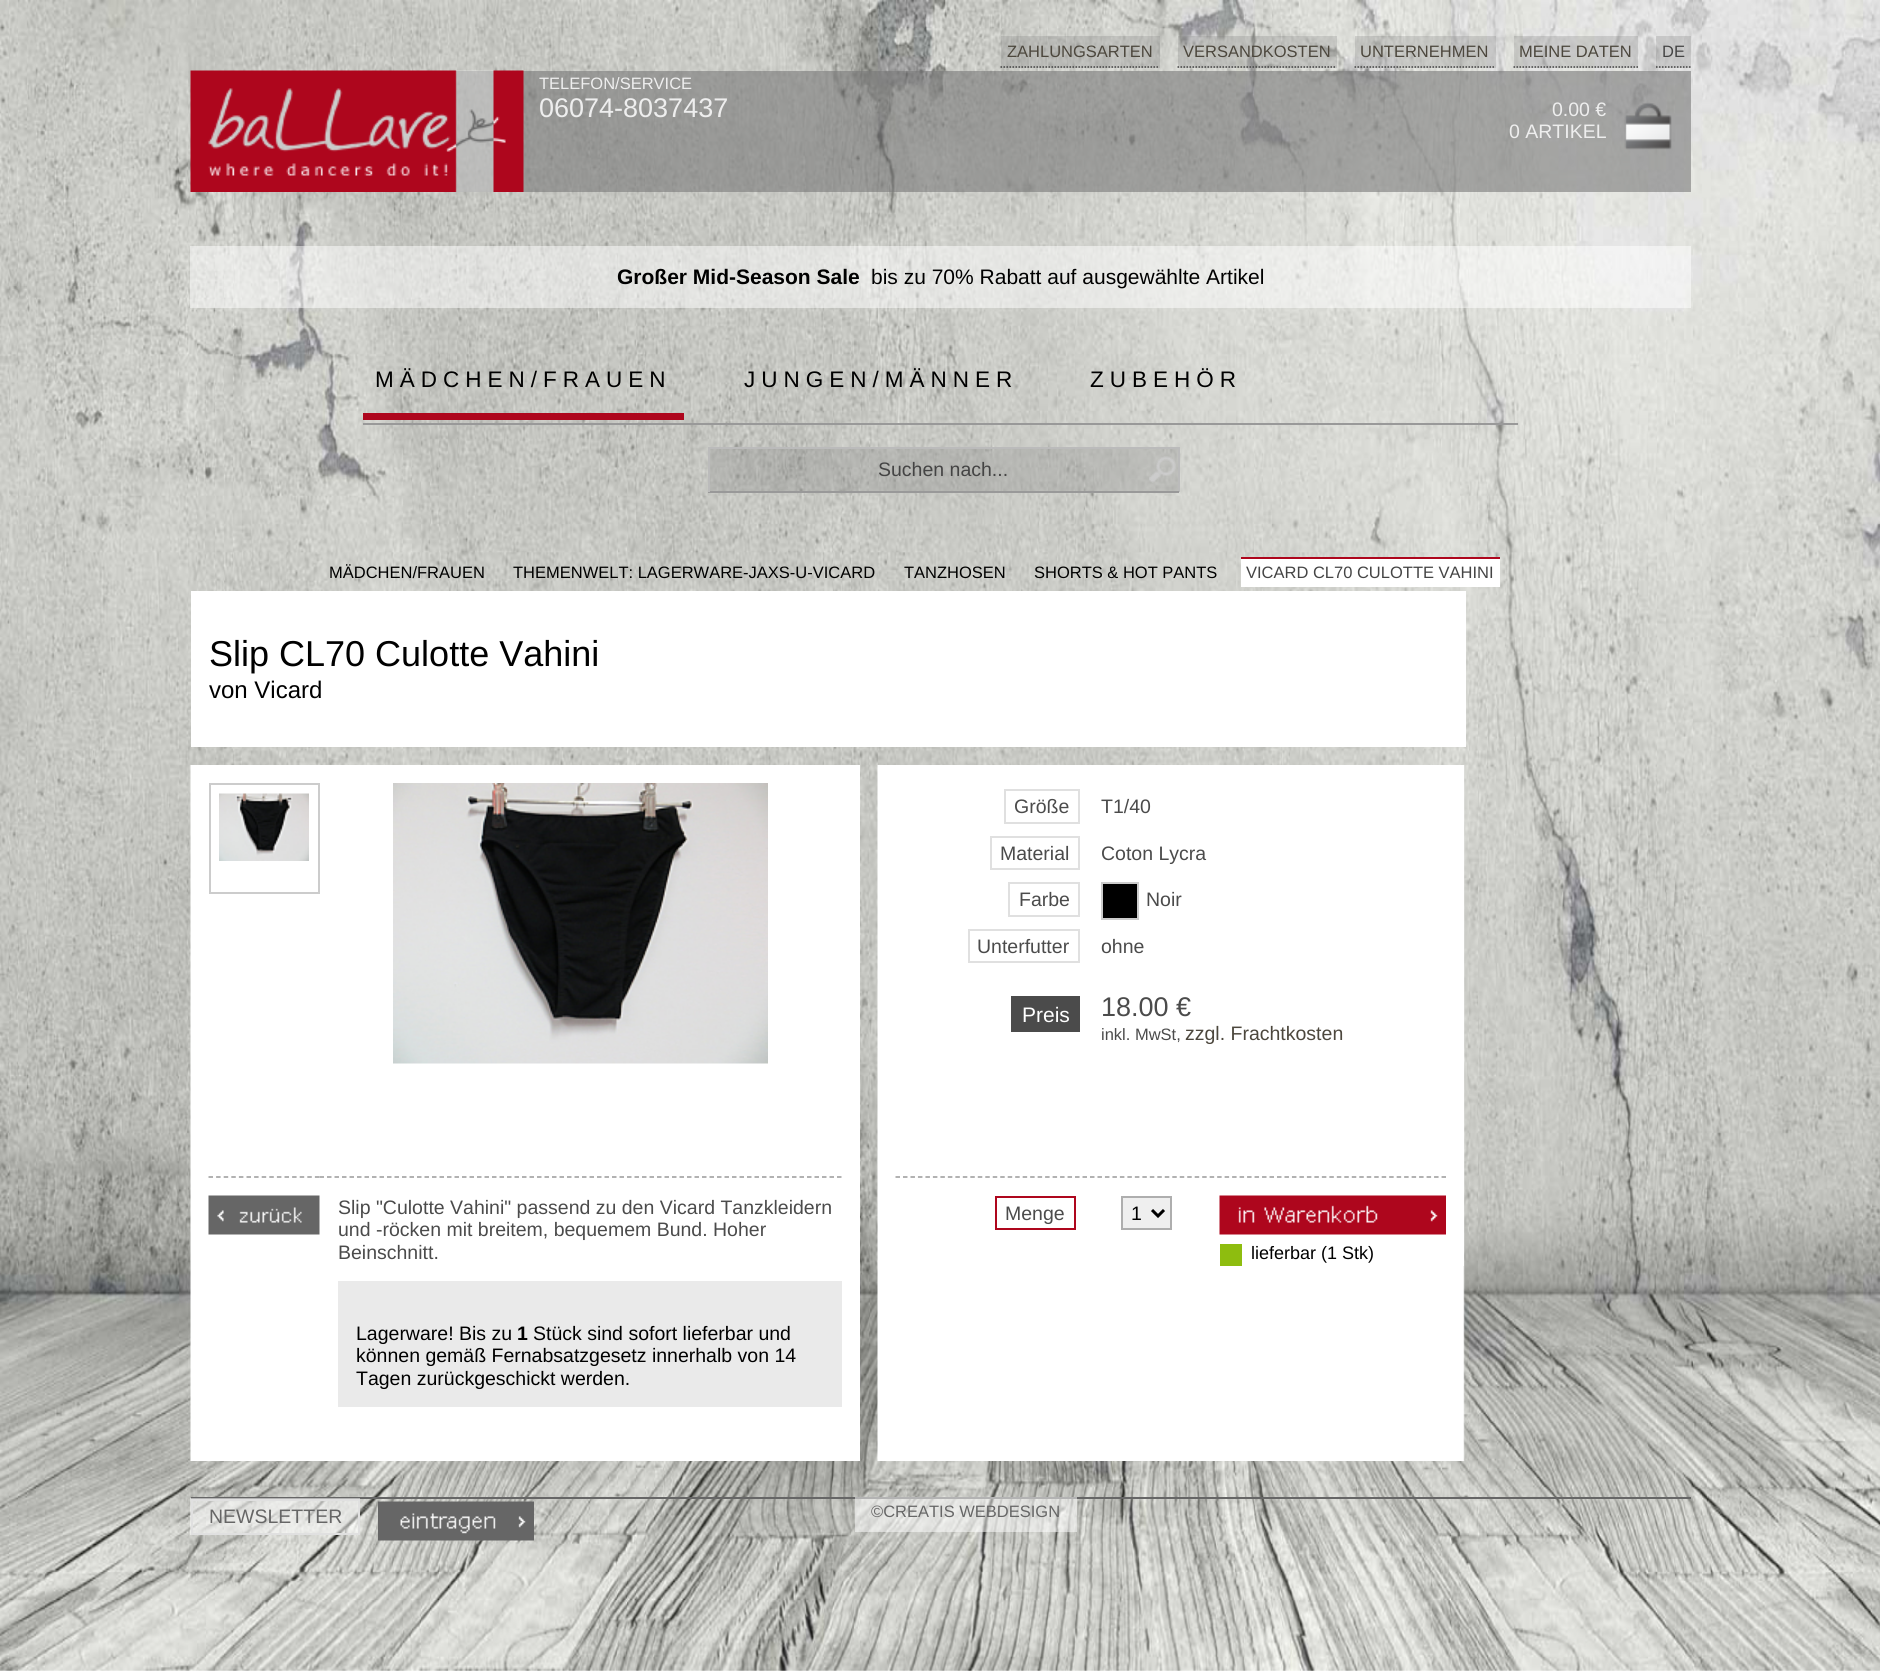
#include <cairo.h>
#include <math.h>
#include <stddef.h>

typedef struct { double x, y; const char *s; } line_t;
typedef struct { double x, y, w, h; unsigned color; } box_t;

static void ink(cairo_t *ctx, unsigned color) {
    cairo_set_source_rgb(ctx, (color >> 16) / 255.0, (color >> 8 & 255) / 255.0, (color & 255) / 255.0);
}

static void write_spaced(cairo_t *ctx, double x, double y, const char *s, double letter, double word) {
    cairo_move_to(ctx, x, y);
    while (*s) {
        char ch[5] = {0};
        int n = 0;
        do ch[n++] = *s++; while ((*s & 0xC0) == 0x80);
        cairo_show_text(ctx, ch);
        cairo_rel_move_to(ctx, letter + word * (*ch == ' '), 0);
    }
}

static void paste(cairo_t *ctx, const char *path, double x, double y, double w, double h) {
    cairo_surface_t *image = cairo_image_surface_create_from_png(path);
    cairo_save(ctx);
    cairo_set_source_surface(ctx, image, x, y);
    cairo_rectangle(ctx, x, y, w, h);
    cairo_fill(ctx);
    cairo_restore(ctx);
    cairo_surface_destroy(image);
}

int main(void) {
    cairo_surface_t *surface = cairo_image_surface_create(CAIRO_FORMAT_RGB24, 1880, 1671);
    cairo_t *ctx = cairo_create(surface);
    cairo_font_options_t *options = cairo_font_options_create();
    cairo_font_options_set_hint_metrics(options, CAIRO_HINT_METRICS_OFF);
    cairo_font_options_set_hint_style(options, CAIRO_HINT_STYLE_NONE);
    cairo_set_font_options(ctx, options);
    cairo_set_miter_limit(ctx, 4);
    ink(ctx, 0xFFFFFF);
    cairo_paint(ctx);
    paste(ctx, "media/1.png", 0, 0, 1880, 1671);
    cairo_set_source_rgba(ctx, 0.471, 0.471, 0.471, 0.25);
    cairo_rectangle(ctx, 1001, 36, 159, 32);
    cairo_fill(ctx);
    cairo_new_path(ctx);
    cairo_move_to(ctx, 1000.5, 67);
    cairo_line_to(ctx, 1159.5, 67);
    ink(ctx, 0x444444);
    cairo_set_line_width(ctx, 1.5);
    cairo_set_dash(ctx, (double[]){1.5, 1.5}, 2, 0);
    cairo_stroke(ctx);
    cairo_select_font_face(ctx, "Liberation Sans", CAIRO_FONT_SLANT_NORMAL, CAIRO_FONT_WEIGHT_NORMAL);
    cairo_set_font_size(ctx, 16.5);
    ink(ctx, 0x4C473D);
    cairo_move_to(ctx, 1007, 57);
    cairo_show_text(ctx, "ZAHLUNGSARTEN");
    cairo_set_source_rgba(ctx, 0.471, 0.471, 0.471, 0.25);
    cairo_rectangle(ctx, 1178, 36, 159, 32);
    cairo_fill(ctx);
    cairo_new_path(ctx);
    cairo_move_to(ctx, 1177.5, 67);
    cairo_line_to(ctx, 1336.5, 67);
    ink(ctx, 0x444444);
    cairo_stroke(ctx);
    ink(ctx, 0x4C473D);
    cairo_move_to(ctx, 1183, 57);
    cairo_show_text(ctx, "VERSANDKOSTEN");
    cairo_set_source_rgba(ctx, 0.471, 0.471, 0.471, 0.25);
    cairo_rectangle(ctx, 1355, 36, 141, 32);
    cairo_fill(ctx);
    cairo_new_path(ctx);
    cairo_move_to(ctx, 1354.5, 67);
    cairo_line_to(ctx, 1495.5, 67);
    ink(ctx, 0x444444);
    cairo_stroke(ctx);
    ink(ctx, 0x4C473D);
    cairo_move_to(ctx, 1360, 57);
    cairo_show_text(ctx, "UNTERNEHMEN");
    cairo_set_source_rgba(ctx, 0.471, 0.471, 0.471, 0.25);
    cairo_rectangle(ctx, 1514, 36, 124, 32);
    cairo_fill(ctx);
    cairo_new_path(ctx);
    cairo_move_to(ctx, 1513.5, 67);
    cairo_line_to(ctx, 1638, 67);
    ink(ctx, 0x444444);
    cairo_stroke(ctx);
    ink(ctx, 0x4C473D);
    cairo_move_to(ctx, 1519, 57);
    cairo_show_text(ctx, "MEINE DATEN");
    cairo_set_source_rgba(ctx, 0.471, 0.471, 0.471, 0.25);
    cairo_rectangle(ctx, 1656, 36, 35, 32);
    cairo_fill(ctx);
    cairo_new_path(ctx);
    cairo_move_to(ctx, 1656, 67);
    cairo_line_to(ctx, 1690.5, 67);
    ink(ctx, 0x444444);
    cairo_stroke(ctx);
    cairo_move_to(ctx, 1662, 57);
    cairo_show_text(ctx, "DE");
    cairo_set_source_rgba(ctx, 0.471, 0.471, 0.471, 0.6);
    cairo_rectangle(ctx, 208, 71, 1483, 121);
    cairo_fill(ctx);
    paste(ctx, "media/2.png", 190, 70, 334, 122);
    ink(ctx, 0xEEEEEE);
    cairo_move_to(ctx, 539, 89);
    cairo_show_text(ctx, "TELEFON/SERVICE");
    cairo_set_font_size(ctx, 27);
    cairo_move_to(ctx, 539, 117);
    cairo_show_text(ctx, "06074-8037437");
    cairo_set_font_size(ctx, 19.5);
    cairo_move_to(ctx, 1552, 116);
    cairo_show_text(ctx, "0.00 €");
    cairo_move_to(ctx, 1509, 138);
    cairo_show_text(ctx, "0 ARTIKEL");
    paste(ctx, "media/3.png", 1624, 102, 48, 48);
    cairo_set_source_rgba(ctx, 1, 1, 1, 0.5);
    cairo_rectangle(ctx, 190, 246, 1501, 62);
    cairo_fill(ctx);
    cairo_select_font_face(ctx, "Liberation Sans", CAIRO_FONT_SLANT_NORMAL, CAIRO_FONT_WEIGHT_BOLD);
    cairo_set_font_size(ctx, 21);
    ink(ctx, 0x000000);
    cairo_move_to(ctx, 617, 284);
    cairo_show_text(ctx, "Großer Mid-Season Sale");
    cairo_select_font_face(ctx, "Liberation Sans", CAIRO_FONT_SLANT_NORMAL, CAIRO_FONT_WEIGHT_NORMAL);
    cairo_move_to(ctx, 871, 284);
    cairo_show_text(ctx, "bis zu 70% Rabatt auf ausgewählte Artikel");
    ink(ctx, 0x999999);
    cairo_rectangle(ctx, 363, 423, 1155, 2);
    cairo_fill(ctx);
    cairo_set_font_size(ctx, 22.5);
    ink(ctx, 0x000000);
    write_spaced(ctx, 375, 387, "MÄDCHEN/FRAUEN", 6, 0);
    ink(ctx, 0xAE061D);
    cairo_rectangle(ctx, 363, 413, 321, 7);
    cairo_fill(ctx);
    ink(ctx, 0x000000);
    write_spaced(ctx, 744, 387, "JUNGEN/MÄNNER", 6, 0);
    write_spaced(ctx, 1090, 387, "ZUBEHÖR", 6, 0);
    cairo_set_source_rgba(ctx, 0.471, 0.471, 0.471, 0.25);
    cairo_rectangle(ctx, 710, 449, 468, 42);
    cairo_fill(ctx);
    paste(ctx, "media/4.png", 1149, 456, 27, 27);
    {
        static const box_t items[] = {
            {708, 447, 471, 2, 0xBBBBBB},
            {1178, 447, 2, 45, 0xBBBBBB},
            {708, 491, 471, 2, 0x999999},
            {708, 447, 2, 45, 0xBBBBBB},
        };
        for (size_t i = 0; i < sizeof items / sizeof *items; i++) {
            ink(ctx, items[i].color);
            cairo_rectangle(ctx, items[i].x, items[i].y, items[i].w, items[i].h);
            cairo_fill(ctx);
        }
    }
    cairo_set_font_size(ctx, 19.5);
    ink(ctx, 0x444444);
    cairo_move_to(ctx, 878, 476);
    cairo_show_text(ctx, "Suchen nach...");
    cairo_set_font_size(ctx, 16.5);
    ink(ctx, 0x000000);
    {
        static const line_t items[] = {
            {329, 578, "MÄDCHEN/FRAUEN"},
            {513, 578, "THEMENWELT: LAGERWARE-JAXS-U-VICARD"},
            {904, 578, "TANZHOSEN"},
            {1034, 578, "SHORTS & HOT PANTS"},
        };
        for (size_t i = 0; i < sizeof items / sizeof *items; i++) {
            cairo_move_to(ctx, items[i].x, items[i].y);
            cairo_show_text(ctx, items[i].s);
        }
    }
    ink(ctx, 0xFFFFFF);
    cairo_rectangle(ctx, 1241, 559, 259, 28);
    cairo_fill(ctx);
    ink(ctx, 0xAE061D);
    cairo_rectangle(ctx, 1241, 557, 259, 2);
    cairo_fill(ctx);
    ink(ctx, 0x444444);
    cairo_move_to(ctx, 1246, 578);
    cairo_show_text(ctx, "VICARD CL70 CULOTTE VAHINI");
    ink(ctx, 0xFFFFFF);
    cairo_rectangle(ctx, 191, 591, 1275, 156);
    cairo_fill(ctx);
    cairo_set_font_size(ctx, 36);
    ink(ctx, 0x000000);
    cairo_move_to(ctx, 209, 666);
    cairo_show_text(ctx, "Slip CL70 Culotte Vahini");
    cairo_set_font_size(ctx, 24);
    cairo_move_to(ctx, 209, 698);
    cairo_show_text(ctx, "von Vicard");
    paste(ctx, "media/5.png", 190, 765, 1275, 696);
    cairo_new_path(ctx);
    cairo_move_to(ctx, 319.5, 1177);
    cairo_line_to(ctx, 841.5, 1177);
    ink(ctx, 0x999999);
    cairo_set_dash(ctx, (double[]){4.5, 3}, 2, 0);
    cairo_stroke(ctx);
    cairo_new_path(ctx);
    cairo_move_to(ctx, 208.5, 1177);
    cairo_line_to(ctx, 319.5, 1177);
    cairo_set_dash(ctx, (double[]){4.5, 3.1}, 2, 0);
    cairo_stroke(ctx);
    cairo_rectangle(ctx, 210, 784, 109, 109);
    ink(ctx, 0xCCCCCC);
    cairo_set_line_width(ctx, 2);
    cairo_set_dash(ctx, NULL, 0, 0);
    cairo_stroke(ctx);
    paste(ctx, "media/6.png", 219, 793, 90, 68);
    paste(ctx, "media/7.png", 208, 1195, 112, 40);
    ink(ctx, 0xFFFFFF);
    cairo_rectangle(ctx, 1463, 765, 1, 501);
    cairo_fill(ctx);
    cairo_rectangle(ctx, 1005, 790, 74, 33);
    ink(ctx, 0xE0E0E0);
    cairo_stroke(ctx);
    cairo_set_font_size(ctx, 19.5);
    ink(ctx, 0x4B4B4B);
    cairo_move_to(ctx, 1014, 813);
    cairo_show_text(ctx, "Größe");
    cairo_move_to(ctx, 1101, 813);
    cairo_show_text(ctx, "T1/40");
    cairo_rectangle(ctx, 991, 837, 88, 32);
    ink(ctx, 0xE0E0E0);
    cairo_stroke(ctx);
    ink(ctx, 0x4B4B4B);
    cairo_move_to(ctx, 1000, 860);
    cairo_show_text(ctx, "Material");
    cairo_move_to(ctx, 1101, 860);
    cairo_show_text(ctx, "Coton Lycra");
    cairo_rectangle(ctx, 1009, 883, 70, 33);
    ink(ctx, 0xE0E0E0);
    cairo_stroke(ctx);
    ink(ctx, 0x4B4B4B);
    cairo_move_to(ctx, 1019, 906);
    cairo_show_text(ctx, "Farbe");
    ink(ctx, 0x000000);
    cairo_rectangle(ctx, 1102, 883, 36, 36);
    cairo_fill_preserve(ctx);
    ink(ctx, 0xCCCCCC);
    cairo_stroke(ctx);
    ink(ctx, 0x4B4B4B);
    cairo_move_to(ctx, 1146, 906);
    cairo_show_text(ctx, "Noir");
    cairo_rectangle(ctx, 969, 930, 110, 32);
    ink(ctx, 0xE0E0E0);
    cairo_stroke(ctx);
    ink(ctx, 0x4B4B4B);
    cairo_move_to(ctx, 977, 953);
    cairo_show_text(ctx, "Unterfutter");
    cairo_move_to(ctx, 1101, 953);
    cairo_show_text(ctx, "ohne");
    cairo_rectangle(ctx, 1011, 996, 69, 36);
    cairo_fill(ctx);
    cairo_set_font_size(ctx, 21);
    ink(ctx, 0xFFFFFF);
    cairo_move_to(ctx, 1022, 1022);
    cairo_show_text(ctx, "Preis");
    cairo_set_font_size(ctx, 27);
    ink(ctx, 0x4B4B4B);
    cairo_move_to(ctx, 1101, 1016);
    cairo_show_text(ctx, "18.00 €");
    cairo_set_font_size(ctx, 16.5);
    cairo_move_to(ctx, 1101, 1040);
    cairo_show_text(ctx, "inkl. MwSt,");
    cairo_set_font_size(ctx, 19.5);
    ink(ctx, 0x4C473D);
    cairo_move_to(ctx, 1185, 1040);
    cairo_show_text(ctx, "zzgl. Frachtkosten");
    cairo_new_path(ctx);
    cairo_move_to(ctx, 895.5, 1177);
    cairo_line_to(ctx, 1446, 1177);
    ink(ctx, 0x999999);
    cairo_set_line_width(ctx, 1.5);
    cairo_set_dash(ctx, (double[]){4.5, 2.98}, 2, 0);
    cairo_stroke(ctx);
    cairo_rectangle(ctx, 996, 1197, 79, 32);
    ink(ctx, 0xAE061D);
    cairo_set_line_width(ctx, 2);
    cairo_set_dash(ctx, NULL, 0, 0);
    cairo_stroke(ctx);
    ink(ctx, 0x4B4B4B);
    cairo_move_to(ctx, 1005, 1220);
    cairo_show_text(ctx, "Menge");
    ink(ctx, 0xEFEFEF);
    cairo_rectangle(ctx, 1122, 1197, 49, 32);
    cairo_fill_preserve(ctx);
    ink(ctx, 0xAEAEAE);
    cairo_stroke(ctx);
    cairo_new_path(ctx);
    cairo_move_to(ctx, 1152, 1210);
    cairo_line_to(ctx, 1158, 1216);
    cairo_line_to(ctx, 1164, 1210);
    ink(ctx, 0x000000);
    cairo_set_line_width(ctx, 3);
    cairo_stroke(ctx);
    cairo_move_to(ctx, 1131, 1220);
    cairo_show_text(ctx, "1");
    paste(ctx, "media/8.png", 1219, 1195, 227, 40);
    ink(ctx, 0x8EBD0F);
    cairo_rectangle(ctx, 1220, 1244, 22, 22);
    cairo_fill(ctx);
    cairo_set_font_size(ctx, 18);
    ink(ctx, 0x000000);
    cairo_move_to(ctx, 1251, 1259);
    cairo_show_text(ctx, "lieferbar (1 Stk)");
    ink(ctx, 0xFFFFFF);
    cairo_rectangle(ctx, 859, 765, 1, 696);
    cairo_fill(ctx);
    paste(ctx, "media/9.png", 393, 783, 375, 281);
    cairo_set_font_size(ctx, 19.5);
    ink(ctx, 0x4B4B4B);
    {
        static const line_t items[] = {
            {338, 1214, "Slip \"Culotte Vahini\" passend zu den Vicard Tanzkleidern"},
            {338, 1236, "und -röcken mit breitem, bequemem Bund. Hoher"},
            {338, 1259, "Beinschnitt."},
        };
        for (size_t i = 0; i < sizeof items / sizeof *items; i++) {
            cairo_move_to(ctx, items[i].x, items[i].y);
            cairo_show_text(ctx, items[i].s);
        }
    }
    ink(ctx, 0xEAEAEA);
    cairo_rectangle(ctx, 338, 1281, 504, 126);
    cairo_fill(ctx);
    ink(ctx, 0x000000);
    cairo_move_to(ctx, 356, 1340);
    cairo_show_text(ctx, "Lagerware! Bis zu");
    cairo_select_font_face(ctx, "Liberation Sans", CAIRO_FONT_SLANT_NORMAL, CAIRO_FONT_WEIGHT_BOLD);
    cairo_move_to(ctx, 517, 1340);
    cairo_show_text(ctx, "1");
    cairo_select_font_face(ctx, "Liberation Sans", CAIRO_FONT_SLANT_NORMAL, CAIRO_FONT_WEIGHT_NORMAL);
    {
        static const line_t items[] = {
            {533, 1340, "Stück sind sofort lieferbar und"},
            {356, 1362, "können gemäß Fernabsatzgesetz innerhalb von 14"},
            {356, 1385, "Tagen zurückgeschickt werden."},
        };
        for (size_t i = 0; i < sizeof items / sizeof *items; i++) {
            cairo_move_to(ctx, items[i].x, items[i].y);
            cairo_show_text(ctx, items[i].s);
        }
    }
    ink(ctx, 0x666666);
    cairo_rectangle(ctx, 191, 1497, 1500, 2);
    cairo_fill(ctx);
    cairo_set_source_rgba(ctx, 1, 1, 1, 0.5);
    cairo_rectangle(ctx, 190, 1498, 170, 37);
    cairo_fill(ctx);
    cairo_rectangle(ctx, 192, 1500, 167, 34);
    ink(ctx, 0xE0E0E0);
    cairo_set_line_width(ctx, 2);
    cairo_stroke(ctx);
    ink(ctx, 0x666666);
    cairo_move_to(ctx, 209, 1523);
    cairo_show_text(ctx, "NEWSLETTER");
    paste(ctx, "media/10.png", 378, 1501, 156, 40);
    cairo_set_source_rgba(ctx, 1, 1, 1, 0.5);
    cairo_rectangle(ctx, 855, 1497, 222, 35);
    cairo_fill(ctx);
    cairo_set_font_size(ctx, 16.5);
    ink(ctx, 0x666666);
    cairo_move_to(ctx, 871, 1517);
    cairo_show_text(ctx, "©CREATIS WEBDESIGN");
    cairo_surface_write_to_png(surface, "image.png");
    cairo_font_options_destroy(options);
    cairo_destroy(ctx);
    cairo_surface_destroy(surface);
    return 0;
}
